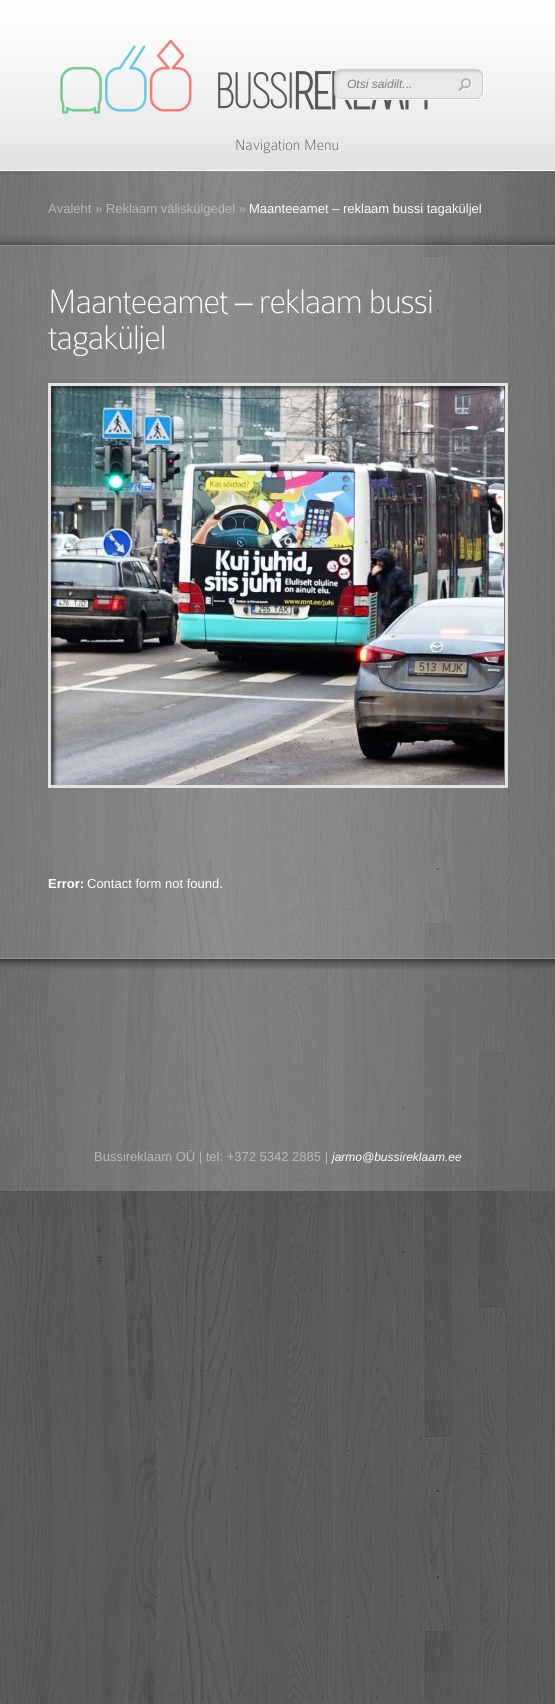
#include <cairo.h>
#include <math.h>
#include <stddef.h>


static void ink(cairo_t *ctx, unsigned color) {
    cairo_set_source_rgb(ctx, (color >> 16) / 255.0, (color >> 8 & 255) / 255.0, (color & 255) / 255.0);
}

static void write_spaced(cairo_t *ctx, double x, double y, const char *s, double letter, double word) {
    cairo_move_to(ctx, x, y);
    while (*s) {
        char ch[5] = {0};
        int n = 0;
        do ch[n++] = *s++; while ((*s & 0xC0) == 0x80);
        cairo_show_text(ctx, ch);
        cairo_rel_move_to(ctx, letter + word * (*ch == ' '), 0);
    }
}

static void paste(cairo_t *ctx, const char *path, double x, double y, double w, double h) {
    cairo_surface_t *image = cairo_image_surface_create_from_png(path);
    cairo_save(ctx);
    cairo_set_source_surface(ctx, image, x, y);
    cairo_rectangle(ctx, x, y, w, h);
    cairo_fill(ctx);
    cairo_restore(ctx);
    cairo_surface_destroy(image);
}

int main(void) {
    cairo_surface_t *surface = cairo_image_surface_create(CAIRO_FORMAT_RGB24, 555, 1704);
    cairo_t *ctx = cairo_create(surface);
    cairo_font_options_t *options = cairo_font_options_create();
    cairo_font_options_set_hint_metrics(options, CAIRO_HINT_METRICS_OFF);
    cairo_font_options_set_hint_style(options, CAIRO_HINT_STYLE_NONE);
    cairo_set_font_options(ctx, options);
    cairo_set_miter_limit(ctx, 4);
    ink(ctx, 0xFFFFFF);
    cairo_paint(ctx);
    paste(ctx, "media/1.png", 0, 171, 555, 1533);
    paste(ctx, "media/2.png", 0, 0, 555, 170);
    paste(ctx, "media/3.png", 60, 39, 368, 75);
    paste(ctx, "media/4.png", 334, 69, 150, 31);
    cairo_select_font_face(ctx, "Liberation Sans", CAIRO_FONT_SLANT_ITALIC, CAIRO_FONT_WEIGHT_NORMAL);
    cairo_set_font_size(ctx, 12);
    ink(ctx, 0x7D7D7D);
    cairo_move_to(ctx, 347, 88);
    cairo_show_text(ctx, "Otsi saidilt...");
    paste(ctx, "media/5.png", 458, 78, 14, 14);
    cairo_select_font_face(ctx, "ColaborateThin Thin", CAIRO_FONT_SLANT_NORMAL, CAIRO_FONT_WEIGHT_NORMAL);
    cairo_set_font_size(ctx, 16);
    ink(ctx, 0x535353);
    cairo_move_to(ctx, 235, 150);
    cairo_show_text(ctx, "Navigation Menu");
    paste(ctx, "media/6.png", 0, 242, 555, 4);
    paste(ctx, "media/7.png", 0, 234, 555, 12);
    cairo_set_source_rgba(ctx, 0, 0, 0, 0.09);
    cairo_rectangle(ctx, 0, 171, 555, 75);
    cairo_fill(ctx);
    paste(ctx, "media/8.png", 0, 171, 555, 75);
    cairo_select_font_face(ctx, "Liberation Sans", CAIRO_FONT_SLANT_NORMAL, CAIRO_FONT_WEIGHT_NORMAL);
    cairo_set_font_size(ctx, 13);
    ink(ctx, 0xB9B9B9);
    cairo_move_to(ctx, 48, 213);
    cairo_show_text(ctx, "Avaleht » Reklaam väliskülgedel »");
    ink(ctx, 0xFFFFFF);
    cairo_move_to(ctx, 249, 213);
    cairo_show_text(ctx, "Maanteeamet – reklaam bussi tagaküljel");
    paste(ctx, "media/9.png", 0, 246, 555, 945);
    cairo_select_font_face(ctx, "ColaborateThin Thin", CAIRO_FONT_SLANT_NORMAL, CAIRO_FONT_WEIGHT_NORMAL);
    cairo_set_font_size(ctx, 36);
    write_spaced(ctx, 48, 313, "Maanteeamet – reklaam bussi", -1, 0);
    write_spaced(ctx, 48, 349, "tagaküljel", -1, 0);
    cairo_rectangle(ctx, 49.5, 384.5, 457, 402);
    ink(ctx, 0xE3E3E3);
    cairo_set_line_width(ctx, 3);
    cairo_stroke(ctx);
    paste(ctx, "media/10.png", 51, 386, 453, 399);
    paste(ctx, "media/11.png", 51, 386, 454, 399);
    cairo_select_font_face(ctx, "Liberation Sans", CAIRO_FONT_SLANT_NORMAL, CAIRO_FONT_WEIGHT_BOLD);
    cairo_set_font_size(ctx, 13);
    ink(ctx, 0xFFFFFF);
    cairo_move_to(ctx, 48, 888);
    cairo_show_text(ctx, "Error:");
    cairo_select_font_face(ctx, "Liberation Sans", CAIRO_FONT_SLANT_NORMAL, CAIRO_FONT_WEIGHT_NORMAL);
    cairo_move_to(ctx, 87, 888);
    cairo_show_text(ctx, "Contact form not found.");
    cairo_set_source_rgba(ctx, 0, 0, 0, 0.09);
    cairo_rectangle(ctx, 0, 958, 555, 233);
    cairo_fill(ctx);
    paste(ctx, "media/12.png", 0, 958, 555, 4);
    paste(ctx, "media/13.png", 0, 958, 555, 12);
    ink(ctx, 0xB9B9B9);
    cairo_move_to(ctx, 94, 1161);
    cairo_show_text(ctx, "Bussireklaam OÜ | tel: +372 5342 2885 |");
    cairo_select_font_face(ctx, "Liberation Sans", CAIRO_FONT_SLANT_ITALIC, CAIRO_FONT_WEIGHT_NORMAL);
    cairo_set_font_size(ctx, 12);
    ink(ctx, 0xFFFFFF);
    cairo_move_to(ctx, 332, 1161);
    cairo_show_text(ctx, "jarmo@bussireklaam.ee");
    cairo_surface_write_to_png(surface, "image.png");
    cairo_font_options_destroy(options);
    cairo_destroy(ctx);
    cairo_surface_destroy(surface);
    return 0;
}
